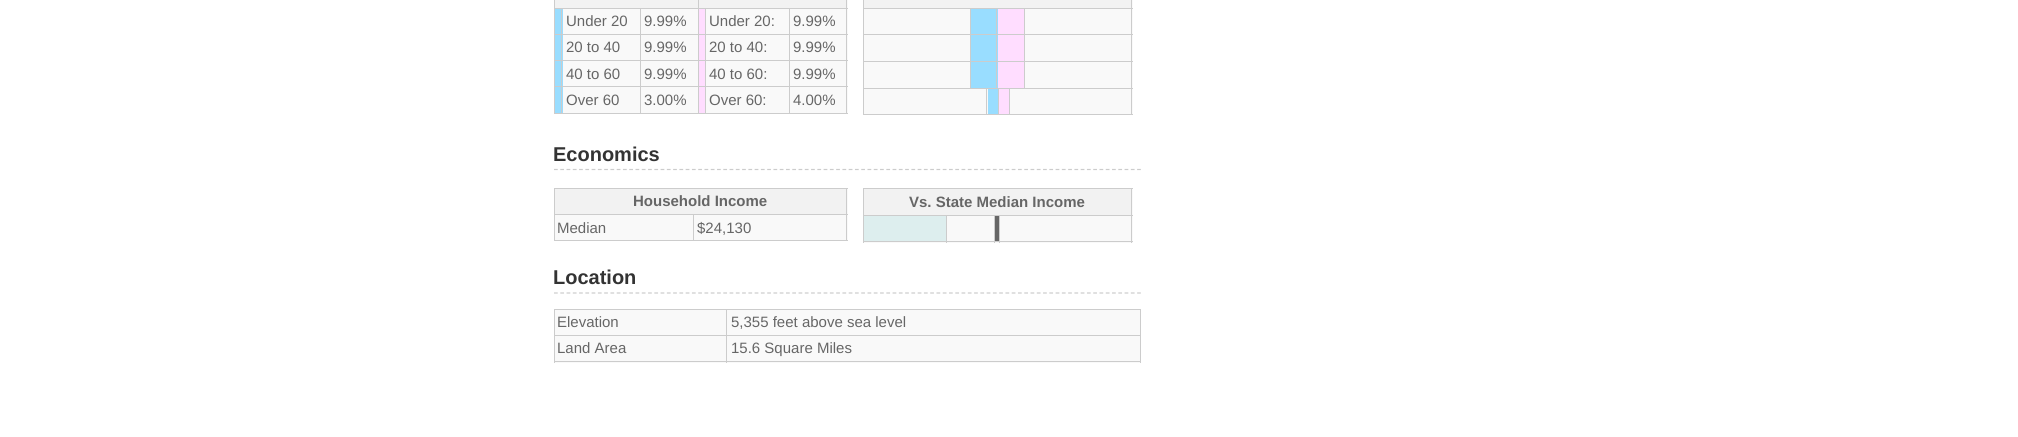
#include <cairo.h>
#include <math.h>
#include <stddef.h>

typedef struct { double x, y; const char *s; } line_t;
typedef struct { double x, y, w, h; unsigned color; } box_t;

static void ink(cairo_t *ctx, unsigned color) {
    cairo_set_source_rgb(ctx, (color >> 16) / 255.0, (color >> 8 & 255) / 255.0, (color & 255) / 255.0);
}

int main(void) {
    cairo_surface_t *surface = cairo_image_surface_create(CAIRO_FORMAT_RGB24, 2018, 437);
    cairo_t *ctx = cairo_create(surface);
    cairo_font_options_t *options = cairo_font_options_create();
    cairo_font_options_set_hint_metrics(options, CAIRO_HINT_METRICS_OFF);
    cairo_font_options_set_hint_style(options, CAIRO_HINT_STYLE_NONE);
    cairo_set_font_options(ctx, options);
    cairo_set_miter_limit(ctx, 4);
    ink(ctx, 0xFFFFFF);
    cairo_paint(ctx);
    {
        static const box_t items[] = {
            {563, 0, 285, 113, 0xF9F9F9},
            {846, 0, 1, 114, 0xCCCCCC},
            {554, 113, 294, 1, 0xCCCCCC},
            {554, 0, 292, 8, 0xF2F2F2},
            {554, 0, 1, 114, 0xCCCCCC},
            {699, 8, 6, 105, 0xFFDDFF},
            {789, 8, 59, 1, 0xCCCCCC},
            {789, 34, 59, 1, 0xCCCCCC},
            {789, 60, 59, 1, 0xCCCCCC},
            {789, 86, 59, 1, 0xCCCCCC},
            {789, 86, 1, 28, 0xCCCCCC},
            {705, 86, 85, 1, 0xCCCCCC},
            {789, 60, 1, 28, 0xCCCCCC},
            {705, 60, 85, 1, 0xCCCCCC},
            {789, 34, 1, 27, 0xCCCCCC},
            {705, 34, 85, 1, 0xCCCCCC},
            {789, 8, 1, 27, 0xCCCCCC},
            {705, 8, 85, 1, 0xCCCCCC},
            {705, 86, 1, 28, 0xCCCCCC},
            {698, 86, 8, 1, 0xCCCCCC},
            {705, 60, 1, 28, 0xCCCCCC},
            {698, 60, 8, 1, 0xCCCCCC},
            {705, 34, 1, 27, 0xCCCCCC},
            {698, 34, 8, 1, 0xCCCCCC},
            {705, 8, 1, 27, 0xCCCCCC},
            {698, 8, 8, 1, 0xCCCCCC},
            {698, 86, 1, 28, 0xCCCCCC},
            {640, 86, 59, 1, 0xCCCCCC},
            {698, 60, 1, 28, 0xCCCCCC},
            {640, 60, 59, 1, 0xCCCCCC},
            {698, 34, 1, 27, 0xCCCCCC},
            {640, 34, 59, 1, 0xCCCCCC},
            {698, 8, 1, 27, 0xCCCCCC},
            {640, 8, 59, 1, 0xCCCCCC},
            {698, 0, 1, 9, 0xCCCCCC},
            {555, 9, 8, 25, 0x99DDFF},
            {640, 86, 1, 28, 0xCCCCCC},
            {561, 86, 80, 1, 0xCCCCCC},
            {640, 60, 1, 28, 0xCCCCCC},
            {561, 60, 80, 1, 0xCCCCCC},
            {640, 34, 1, 27, 0xCCCCCC},
            {561, 34, 80, 1, 0xCCCCCC},
            {640, 8, 1, 27, 0xCCCCCC},
            {561, 8, 80, 1, 0xCCCCCC},
            {555, 35, 8, 25, 0x99DDFF},
            {555, 61, 8, 25, 0x99DDFF},
            {555, 87, 8, 26, 0x99DDFF},
            {561, 86, 1, 28, 0xCCCCCC},
            {554, 86, 9, 1, 0xCCCCCC},
            {561, 60, 1, 28, 0xCCCCCC},
            {554, 60, 9, 1, 0xCCCCCC},
            {561, 34, 1, 27, 0xCCCCCC},
            {554, 34, 9, 1, 0xCCCCCC},
            {561, 8, 1, 27, 0xCCCCCC},
            {554, 8, 9, 1, 0xCCCCCC},
        };
        for (size_t i = 0; i < sizeof items / sizeof *items; i++) {
            ink(ctx, items[i].color);
            cairo_rectangle(ctx, items[i].x, items[i].y, items[i].w, items[i].h);
            cairo_fill(ctx);
        }
    }
    cairo_select_font_face(ctx, "Liberation Sans", CAIRO_FONT_SLANT_NORMAL, CAIRO_FONT_WEIGHT_NORMAL);
    cairo_set_font_size(ctx, 15);
    ink(ctx, 0x666666);
    {
        static const line_t items[] = {
            {566, 26, "Under 20"},
            {644, 26, "9.99%"},
            {709, 26, "Under 20:"},
            {793, 26, "9.99%"},
            {566, 52, "20 to 40"},
            {644, 52, "9.99%"},
            {709, 52, "20 to 40:"},
            {793, 52, "9.99%"},
            {566, 79, "40 to 60"},
            {644, 79, "9.99%"},
            {709, 79, "40 to 60:"},
            {793, 79, "9.99%"},
            {566, 105, "Over 60"},
            {644, 105, "3.00%"},
            {709, 105, "Over 60:"},
            {793, 105, "4.00%"},
        };
        for (size_t i = 0; i < sizeof items / sizeof *items; i++) {
            cairo_move_to(ctx, items[i].x, items[i].y);
            cairo_show_text(ctx, items[i].s);
        }
    }
    {
        static const box_t items[] = {
            {864, 0, 269, 34, 0xF9F9F9},
            {1131, 0, 1, 8, 0xCCCCCC},
            {863, 0, 268, 8, 0xF2F2F2},
            {863, 0, 1, 8, 0xCCCCCC},
            {1024, 8, 109, 1, 0xCCCCCC},
            {1024, 8, 1, 27, 0xCCCCCC},
            {996, 8, 29, 1, 0xCCCCCC},
            {971, 9, 27, 25, 0x99DDFF},
            {996, 8, 1, 27, 0xCCCCCC},
            {970, 8, 28, 1, 0xCCCCCC},
            {970, 8, 1, 27, 0xCCCCCC},
            {863, 8, 108, 1, 0xCCCCCC},
            {863, 8, 1, 27, 0xCCCCCC},
            {998, 9, 26, 25, 0xFFDDFF},
            {1131, 8, 1, 27, 0xCCCCCC},
            {864, 35, 269, 26, 0xF9F9F9},
            {863, 34, 270, 1, 0xCCCCCC},
            {1131, 34, 1, 27, 0xCCCCCC},
            {863, 34, 1, 27, 0xCCCCCC},
            {971, 35, 27, 26, 0x99DDFF},
            {970, 34, 1, 27, 0xCCCCCC},
            {998, 35, 26, 26, 0xFFDDFF},
            {996, 34, 1, 27, 0xCCCCCC},
            {1024, 34, 1, 27, 0xCCCCCC},
            {864, 62, 269, 26, 0xF9F9F9},
            {863, 61, 270, 1, 0xCCCCCC},
            {863, 61, 1, 28, 0xCCCCCC},
            {971, 62, 27, 26, 0x99DDFF},
            {970, 61, 1, 28, 0xCCCCCC},
            {998, 62, 26, 26, 0xFFDDFF},
            {996, 61, 1, 28, 0xCCCCCC},
            {1131, 61, 1, 28, 0xCCCCCC},
            {1024, 61, 1, 28, 0xCCCCCC},
            {864, 89, 269, 25, 0xF9F9F9},
            {863, 88, 270, 1, 0xCCCCCC},
            {1131, 88, 1, 27, 0xCCCCCC},
            {863, 114, 270, 1, 0xCCCCCC},
            {863, 88, 1, 27, 0xCCCCCC},
            {988, 89, 10, 25, 0x99DDFF},
            {986, 88, 1, 27, 0xCCCCCC},
            {999, 89, 10, 25, 0xFFDDFF},
            {998, 88, 1, 27, 0xCCCCCC},
            {1009, 88, 1, 27, 0xCCCCCC},
        };
        for (size_t i = 0; i < sizeof items / sizeof *items; i++) {
            ink(ctx, items[i].color);
            cairo_rectangle(ctx, items[i].x, items[i].y, items[i].w, items[i].h);
            cairo_fill(ctx);
        }
    }
    cairo_new_path(ctx);
    cairo_move_to(ctx, 554, 169.5);
    cairo_line_to(ctx, 1141, 169.5);
    cairo_set_line_width(ctx, 1.2);
    cairo_set_dash(ctx, (double[]){3.75, 2.52}, 2, 0);
    cairo_stroke(ctx);
    cairo_select_font_face(ctx, "Liberation Sans", CAIRO_FONT_SLANT_NORMAL, CAIRO_FONT_WEIGHT_BOLD);
    cairo_set_font_size(ctx, 20);
    ink(ctx, 0x333333);
    cairo_move_to(ctx, 553, 161);
    cairo_show_text(ctx, "Economics");
    {
        static const box_t items[] = {
            {555, 189, 293, 51, 0xF9F9F9},
            {554, 188, 294, 1, 0xCCCCCC},
            {846, 188, 1, 53, 0xCCCCCC},
            {554, 240, 294, 1, 0xCCCCCC},
            {554, 188, 1, 53, 0xCCCCCC},
            {555, 189, 291, 25, 0xF2F2F2},
        };
        for (size_t i = 0; i < sizeof items / sizeof *items; i++) {
            ink(ctx, items[i].color);
            cairo_rectangle(ctx, items[i].x, items[i].y, items[i].w, items[i].h);
            cairo_fill(ctx);
        }
    }
    cairo_set_font_size(ctx, 15);
    ink(ctx, 0x666666);
    cairo_move_to(ctx, 633, 206);
    cairo_show_text(ctx, "Household Income");
    {
        static const box_t items[] = {
            {693, 214, 155, 1, 0xCCCCCC},
            {693, 214, 1, 27, 0xCCCCCC},
            {554, 214, 140, 1, 0xCCCCCC},
        };
        for (size_t i = 0; i < sizeof items / sizeof *items; i++) {
            ink(ctx, items[i].color);
            cairo_rectangle(ctx, items[i].x, items[i].y, items[i].w, items[i].h);
            cairo_fill(ctx);
        }
    }
    cairo_select_font_face(ctx, "Liberation Sans", CAIRO_FONT_SLANT_NORMAL, CAIRO_FONT_WEIGHT_NORMAL);
    ink(ctx, 0x666666);
    cairo_move_to(ctx, 557, 233);
    cairo_show_text(ctx, "Median");
    cairo_move_to(ctx, 697, 233);
    cairo_show_text(ctx, "$24,130");
    {
        static const box_t items[] = {
            {1132, 189, 1, 26, 0xF9F9F9},
            {863, 188, 270, 1, 0xCCCCCC},
            {1131, 188, 1, 27, 0xCCCCCC},
            {863, 188, 1, 27, 0xCCCCCC},
            {864, 189, 267, 26, 0xF2F2F2},
        };
        for (size_t i = 0; i < sizeof items / sizeof *items; i++) {
            ink(ctx, items[i].color);
            cairo_rectangle(ctx, items[i].x, items[i].y, items[i].w, items[i].h);
            cairo_fill(ctx);
        }
    }
    cairo_select_font_face(ctx, "Liberation Sans", CAIRO_FONT_SLANT_NORMAL, CAIRO_FONT_WEIGHT_BOLD);
    ink(ctx, 0x666666);
    cairo_move_to(ctx, 909, 207);
    cairo_show_text(ctx, "Vs. State Median Income");
    {
        static const box_t items[] = {
            {864, 216, 269, 27, 0xF9F9F9},
            {995, 215, 4, 26, 0x666666},
            {863, 215, 270, 1, 0xCCCCCC},
            {1131, 215, 1, 28, 0xCCCCCC},
            {863, 241, 270, 1, 0xCCCCCC},
            {863, 215, 1, 28, 0xCCCCCC},
            {864, 216, 82, 25, 0xDDEEEE},
            {946, 215, 1, 28, 0xCCCCCC},
            {994, 215, 1, 28, 0xCCCCCC},
            {999, 215, 1, 28, 0xCCCCCC},
        };
        for (size_t i = 0; i < sizeof items / sizeof *items; i++) {
            ink(ctx, items[i].color);
            cairo_rectangle(ctx, items[i].x, items[i].y, items[i].w, items[i].h);
            cairo_fill(ctx);
        }
    }
    cairo_new_path(ctx);
    cairo_move_to(ctx, 554, 293);
    cairo_line_to(ctx, 1141, 293);
    cairo_stroke(ctx);
    cairo_set_font_size(ctx, 20);
    ink(ctx, 0x333333);
    cairo_move_to(ctx, 553, 284);
    cairo_show_text(ctx, "Location");
    {
        static const box_t items[] = {
            {555, 310, 585, 53, 0xF9F9F9},
            {554, 309, 587, 1, 0xCCCCCC},
            {1140, 309, 1, 54, 0xCCCCCC},
            {554, 361, 587, 1, 0xCCCCCC},
            {554, 309, 1, 54, 0xCCCCCC},
        };
        for (size_t i = 0; i < sizeof items / sizeof *items; i++) {
            ink(ctx, items[i].color);
            cairo_rectangle(ctx, items[i].x, items[i].y, items[i].w, items[i].h);
            cairo_fill(ctx);
        }
    }
    cairo_select_font_face(ctx, "Liberation Sans", CAIRO_FONT_SLANT_NORMAL, CAIRO_FONT_WEIGHT_NORMAL);
    cairo_set_font_size(ctx, 15);
    ink(ctx, 0x666666);
    cairo_move_to(ctx, 557, 327);
    cairo_show_text(ctx, "Elevation");
    {
        static const box_t items[] = {
            {726, 335, 415, 1, 0xCCCCCC},
            {726, 335, 1, 28, 0xCCCCCC},
            {554, 335, 174, 1, 0xCCCCCC},
            {726, 309, 1, 27, 0xCCCCCC},
        };
        for (size_t i = 0; i < sizeof items / sizeof *items; i++) {
            ink(ctx, items[i].color);
            cairo_rectangle(ctx, items[i].x, items[i].y, items[i].w, items[i].h);
            cairo_fill(ctx);
        }
    }
    ink(ctx, 0x666666);
    {
        static const line_t items[] = {
            {731, 327, "5,355 feet above sea level"},
            {557, 353, "Land Area"},
            {731, 353, "15.6 Square Miles"},
        };
        for (size_t i = 0; i < sizeof items / sizeof *items; i++) {
            cairo_move_to(ctx, items[i].x, items[i].y);
            cairo_show_text(ctx, items[i].s);
        }
    }
    cairo_surface_write_to_png(surface, "image.png");
    cairo_font_options_destroy(options);
    cairo_destroy(ctx);
    cairo_surface_destroy(surface);
    return 0;
}
